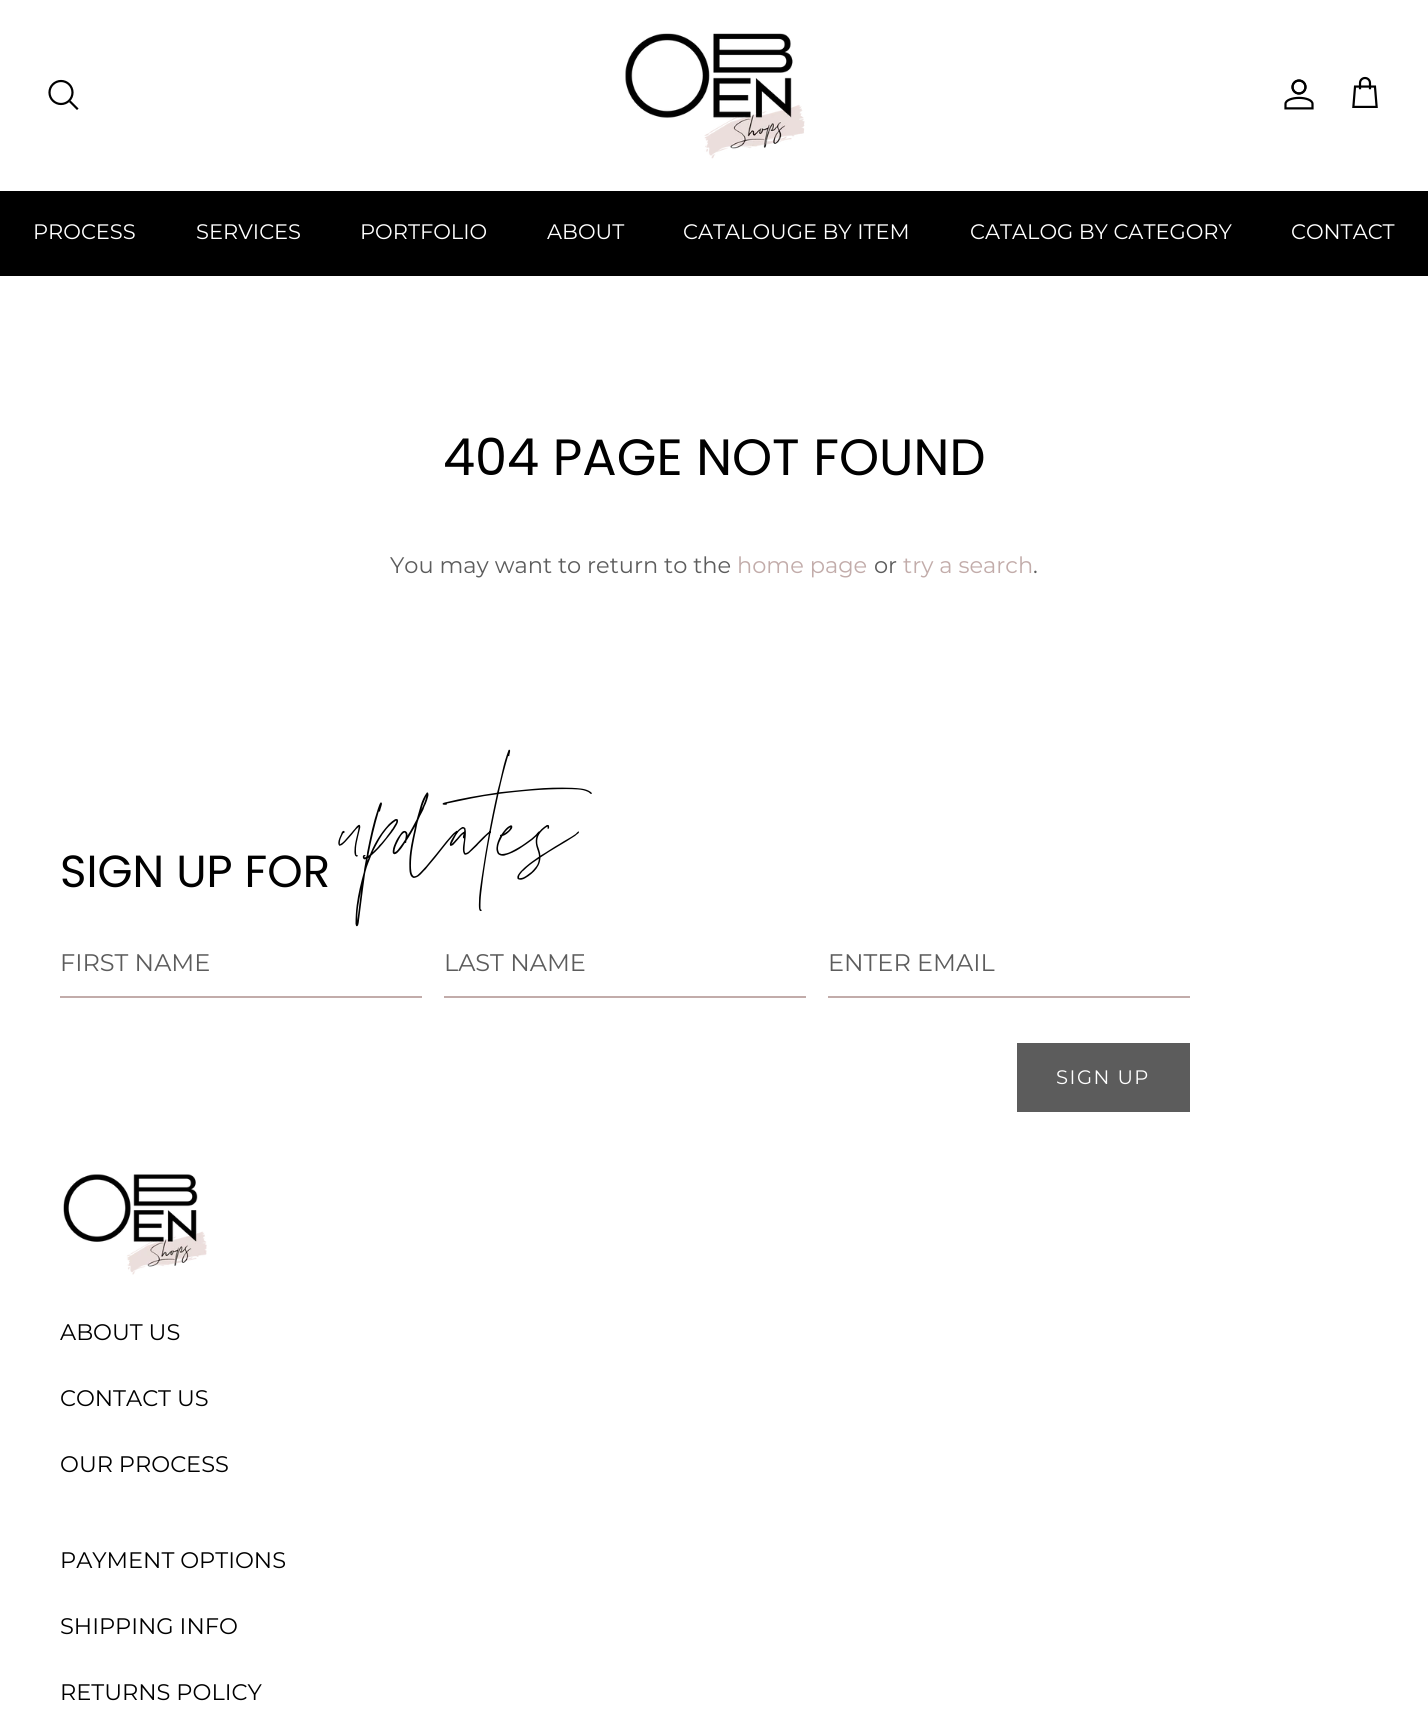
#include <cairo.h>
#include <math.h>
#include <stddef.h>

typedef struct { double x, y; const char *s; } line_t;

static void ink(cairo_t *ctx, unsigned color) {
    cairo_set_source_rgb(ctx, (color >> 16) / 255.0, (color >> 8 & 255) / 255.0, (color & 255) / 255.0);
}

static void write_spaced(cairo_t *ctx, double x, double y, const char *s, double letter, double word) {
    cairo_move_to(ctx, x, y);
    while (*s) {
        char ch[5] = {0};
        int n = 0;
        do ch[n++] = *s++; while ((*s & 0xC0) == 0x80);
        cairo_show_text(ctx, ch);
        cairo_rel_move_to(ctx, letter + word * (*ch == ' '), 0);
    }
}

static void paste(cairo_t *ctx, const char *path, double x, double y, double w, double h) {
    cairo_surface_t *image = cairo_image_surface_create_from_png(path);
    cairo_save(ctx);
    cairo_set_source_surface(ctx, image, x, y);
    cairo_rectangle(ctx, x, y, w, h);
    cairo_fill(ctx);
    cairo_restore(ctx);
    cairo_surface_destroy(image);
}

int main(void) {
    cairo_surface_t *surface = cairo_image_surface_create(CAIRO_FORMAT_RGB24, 1428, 1736);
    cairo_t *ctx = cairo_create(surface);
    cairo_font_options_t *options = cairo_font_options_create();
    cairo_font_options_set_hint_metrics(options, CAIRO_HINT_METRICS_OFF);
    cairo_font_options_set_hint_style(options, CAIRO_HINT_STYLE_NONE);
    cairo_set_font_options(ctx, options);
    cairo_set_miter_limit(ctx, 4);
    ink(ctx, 0xFFFFFF);
    cairo_paint(ctx);
    cairo_arc(ctx, 61, 92.5, 11.5, 0, 2 * M_PI);
    ink(ctx, 0x000000);
    cairo_set_line_width(ctx, 2.2);
    cairo_stroke(ctx);
    cairo_new_path(ctx);
    cairo_move_to(ctx, 70.5, 102);
    cairo_line_to(ctx, 77, 108.5);
    cairo_set_line_cap(ctx, CAIRO_LINE_CAP_SQUARE);
    cairo_stroke(ctx);
    paste(ctx, "media/1.png", 625, 33, 180, 126);
    paste(ctx, "media/2.png", 1284, 79, 30, 31);
    paste(ctx, "media/3.png", 1352, 76, 26, 32);
    cairo_rectangle(ctx, 0, 191, 1428, 85);
    cairo_fill(ctx);
    cairo_select_font_face(ctx, "Montserrat", CAIRO_FONT_SLANT_NORMAL, CAIRO_FONT_WEIGHT_NORMAL);
    cairo_set_font_size(ctx, 21);
    ink(ctx, 0xFFFFFF);
    {
        static const line_t items[] = {
            {33, 239, "PROCESS"},
            {196, 239, "SERVICES"},
            {360, 239, "PORTFOLIO"},
            {547, 239, "ABOUT"},
            {683, 239, "CATALOUGE BY ITEM"},
            {970, 239, "CATALOG BY CATEGORY"},
            {1291, 239, "CONTACT"},
        };
        for (size_t i = 0; i < sizeof items / sizeof *items; i++) {
            cairo_move_to(ctx, items[i].x, items[i].y);
            cairo_show_text(ctx, items[i].s);
        }
    }
    cairo_select_font_face(ctx, "Poppins", CAIRO_FONT_SLANT_NORMAL, CAIRO_FONT_WEIGHT_NORMAL);
    cairo_set_font_size(ctx, 51);
    ink(ctx, 0x000000);
    cairo_move_to(ctx, 443, 475);
    cairo_show_text(ctx, "404 PAGE NOT FOUND");
    cairo_select_font_face(ctx, "Montserrat", CAIRO_FONT_SLANT_NORMAL, CAIRO_FONT_WEIGHT_NORMAL);
    cairo_set_font_size(ctx, 22.5);
    ink(ctx, 0x5C5C5C);
    cairo_move_to(ctx, 390, 573);
    cairo_show_text(ctx, "You may want to return to the");
    ink(ctx, 0xC2ACAA);
    cairo_move_to(ctx, 737, 573);
    cairo_show_text(ctx, "home page");
    ink(ctx, 0x5C5C5C);
    cairo_move_to(ctx, 874, 573);
    cairo_show_text(ctx, "or");
    ink(ctx, 0xC2ACAA);
    cairo_move_to(ctx, 903, 573);
    cairo_show_text(ctx, "try a search");
    ink(ctx, 0x5C5C5C);
    cairo_move_to(ctx, 1033, 573);
    cairo_show_text(ctx, ".");
    cairo_select_font_face(ctx, "Poppins", CAIRO_FONT_SLANT_NORMAL, CAIRO_FONT_WEIGHT_NORMAL);
    cairo_set_font_size(ctx, 45);
    ink(ctx, 0x000000);
    cairo_move_to(ctx, 60, 887);
    cairo_show_text(ctx, "SIGN UP FOR");
    cairo_select_font_face(ctx, "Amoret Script", CAIRO_FONT_SLANT_NORMAL, CAIRO_FONT_WEIGHT_NORMAL);
    cairo_set_font_size(ctx, 180);
    cairo_move_to(ctx, 342, 887);
    cairo_show_text(ctx, "updates");
    ink(ctx, 0xC2ACAA);
    cairo_rectangle(ctx, 60, 996, 362, 2);
    cairo_fill(ctx);
    cairo_select_font_face(ctx, "Montserrat", CAIRO_FONT_SLANT_NORMAL, CAIRO_FONT_WEIGHT_NORMAL);
    cairo_set_font_size(ctx, 24);
    ink(ctx, 0x5C5C5C);
    cairo_move_to(ctx, 60, 971);
    cairo_show_text(ctx, "FIRST NAME");
    ink(ctx, 0xC2ACAA);
    cairo_rectangle(ctx, 444, 996, 362, 2);
    cairo_fill(ctx);
    ink(ctx, 0x5C5C5C);
    cairo_move_to(ctx, 444, 971);
    cairo_show_text(ctx, "LAST NAME");
    ink(ctx, 0xC2ACAA);
    cairo_rectangle(ctx, 828, 996, 362, 2);
    cairo_fill(ctx);
    ink(ctx, 0x5C5C5C);
    cairo_move_to(ctx, 828, 971);
    cairo_show_text(ctx, "ENTER EMAIL");
    cairo_rectangle(ctx, 1017, 1043, 173, 69);
    cairo_fill(ctx);
    cairo_set_font_size(ctx, 19.5);
    ink(ctx, 0xFFFFFF);
    write_spaced(ctx, 1056, 1084, "SIGN UP", 1.5, 0);
    paste(ctx, "media/4.png", 63, 1174, 144, 101);
    cairo_set_font_size(ctx, 22.5);
    ink(ctx, 0x000000);
    {
        static const line_t items[] = {
            {60, 1340, "ABOUT US"},
            {60, 1406, "CONTACT US"},
            {60, 1472, "OUR PROCESS"},
            {60, 1568, "PAYMENT OPTIONS"},
            {60, 1634, "SHIPPING INFO"},
            {60, 1700, "RETURNS POLICY"},
        };
        for (size_t i = 0; i < sizeof items / sizeof *items; i++) {
            cairo_move_to(ctx, items[i].x, items[i].y);
            cairo_show_text(ctx, items[i].s);
        }
    }
    cairo_surface_write_to_png(surface, "image.png");
    cairo_font_options_destroy(options);
    cairo_destroy(ctx);
    cairo_surface_destroy(surface);
    return 0;
}
